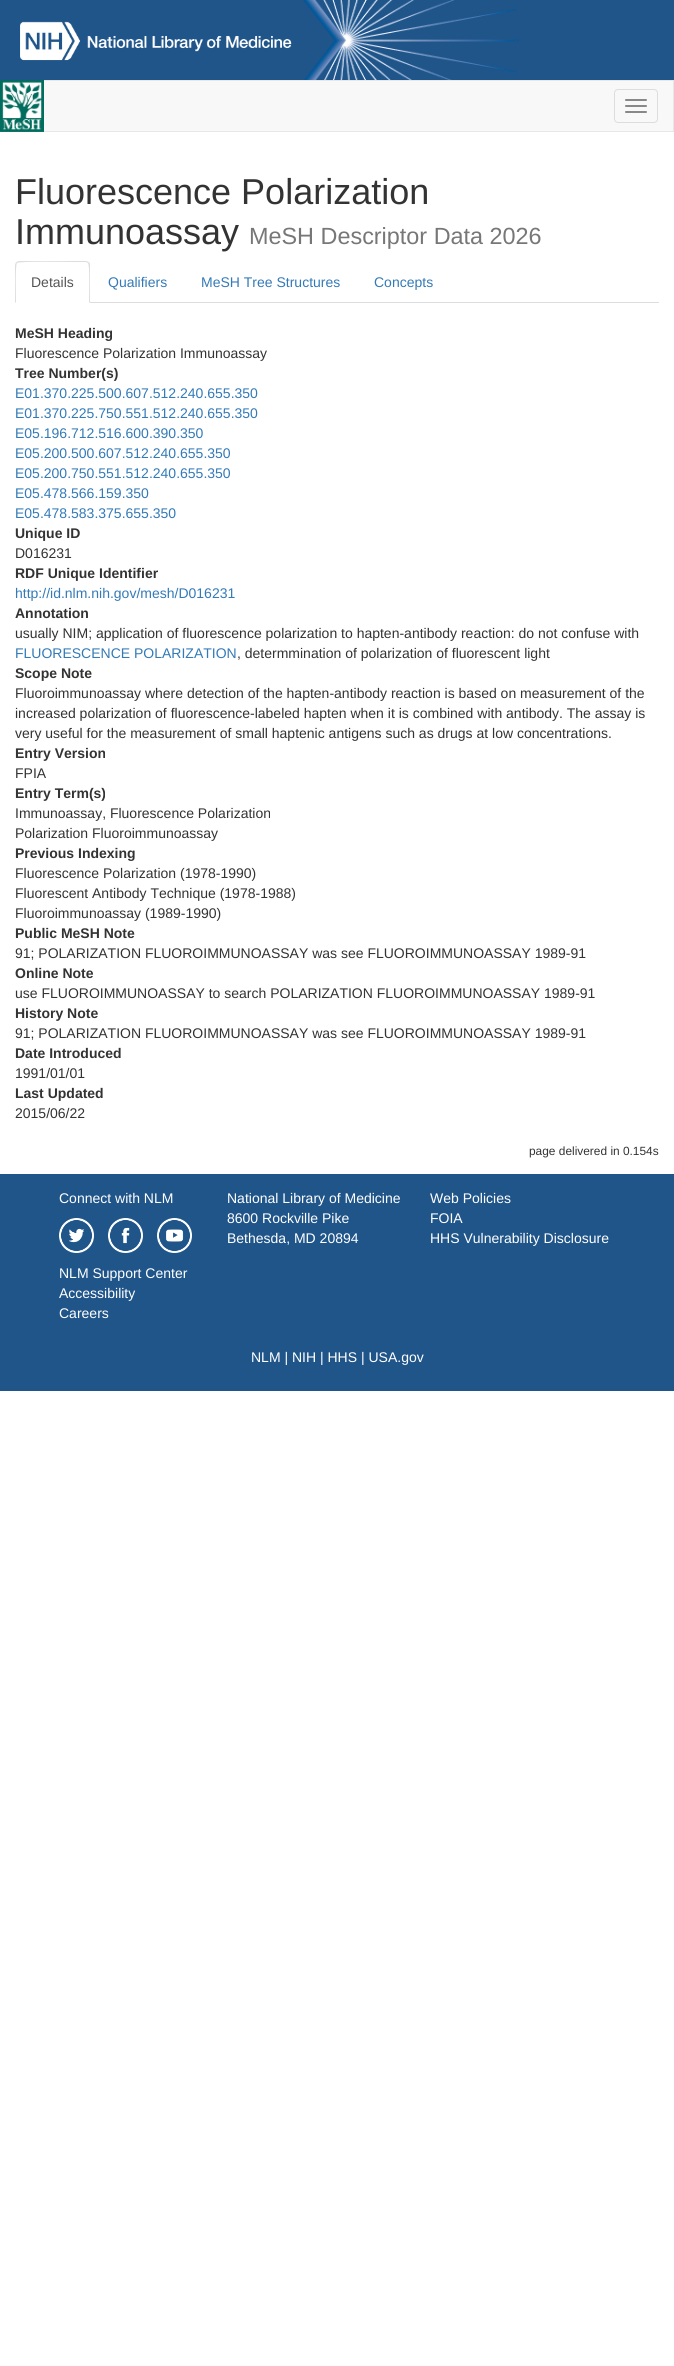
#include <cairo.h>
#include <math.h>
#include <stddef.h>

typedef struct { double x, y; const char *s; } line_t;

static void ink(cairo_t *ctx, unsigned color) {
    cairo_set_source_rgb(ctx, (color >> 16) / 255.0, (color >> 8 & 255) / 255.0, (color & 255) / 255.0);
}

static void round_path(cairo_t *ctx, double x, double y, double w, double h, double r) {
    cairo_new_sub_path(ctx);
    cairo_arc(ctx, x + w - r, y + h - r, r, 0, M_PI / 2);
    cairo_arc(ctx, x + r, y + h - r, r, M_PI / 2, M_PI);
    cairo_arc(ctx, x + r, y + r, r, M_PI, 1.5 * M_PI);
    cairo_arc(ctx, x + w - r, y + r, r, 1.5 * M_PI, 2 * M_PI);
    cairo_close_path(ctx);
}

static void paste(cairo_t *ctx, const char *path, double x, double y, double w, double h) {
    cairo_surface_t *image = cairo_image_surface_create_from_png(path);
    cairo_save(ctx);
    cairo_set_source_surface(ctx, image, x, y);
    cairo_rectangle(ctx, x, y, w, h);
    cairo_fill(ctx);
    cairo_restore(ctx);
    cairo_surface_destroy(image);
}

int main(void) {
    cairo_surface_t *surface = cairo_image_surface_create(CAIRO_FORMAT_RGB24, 674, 2366);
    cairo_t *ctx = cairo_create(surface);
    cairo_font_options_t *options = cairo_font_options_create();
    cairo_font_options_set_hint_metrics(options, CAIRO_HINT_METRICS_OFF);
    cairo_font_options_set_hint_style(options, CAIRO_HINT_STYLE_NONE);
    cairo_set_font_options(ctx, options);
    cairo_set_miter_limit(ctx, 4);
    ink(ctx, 0xFFFFFF);
    cairo_paint(ctx);
    ink(ctx, 0x20558A);
    cairo_rectangle(ctx, 0, 0, 674, 80);
    cairo_fill(ctx);
    paste(ctx, "media/1.png", 303, 0, 216, 80);
    paste(ctx, "media/2.png", 20, 21, 272, 40);
    ink(ctx, 0xF8F8F8);
    cairo_rectangle(ctx, 44, 81, 629, 50);
    cairo_fill(ctx);
    cairo_rectangle(ctx, 0.5, 80.5, 673, 51);
    ink(ctx, 0xE7E7E7);
    cairo_set_line_width(ctx, 1);
    cairo_stroke(ctx);
    paste(ctx, "media/3.png", 0, 80, 44, 52);
    round_path(ctx, 614.5, 89.5, 43, 33, 3.5);
    ink(ctx, 0xDDDDDD);
    cairo_stroke(ctx);
    ink(ctx, 0x888888);
    round_path(ctx, 625, 99, 22, 2, 1);
    cairo_fill(ctx);
    round_path(ctx, 625, 105, 22, 2, 1);
    cairo_fill(ctx);
    round_path(ctx, 625, 111, 22, 2, 1);
    cairo_fill(ctx);
    cairo_select_font_face(ctx, "Liberation Sans", CAIRO_FONT_SLANT_NORMAL, CAIRO_FONT_WEIGHT_NORMAL);
    cairo_set_font_size(ctx, 36);
    ink(ctx, 0x333333);
    cairo_move_to(ctx, 15, 204);
    cairo_show_text(ctx, "Fluorescence Polarization");
    cairo_move_to(ctx, 15, 244);
    cairo_show_text(ctx, "Immunoassay");
    cairo_set_font_size(ctx, 23.4);
    ink(ctx, 0x777777);
    cairo_move_to(ctx, 249, 244);
    cairo_show_text(ctx, "MeSH Descriptor Data 2026");
    ink(ctx, 0xDDDDDD);
    cairo_rectangle(ctx, 90, 302, 569, 1);
    cairo_fill(ctx);
    cairo_new_path(ctx);
    cairo_move_to(ctx, 19, 261);
    cairo_line_to(ctx, 16, 262);
    cairo_line_to(ctx, 17, 263);
    cairo_curve_to(ctx, 19, 261, 68, 262, 75, 262);
    cairo_line_to(ctx, 86, 262);
    cairo_line_to(ctx, 88, 263);
    cairo_line_to(ctx, 89, 262);
    cairo_line_to(ctx, 86, 261);
    cairo_close_path(ctx);
    cairo_fill(ctx);
    cairo_new_path(ctx);
    cairo_move_to(ctx, 90, 303);
    cairo_line_to(ctx, 90, 265);
    cairo_curve_to(ctx, 90, 264, 90, 263, 89, 262);
    cairo_line_to(ctx, 88, 263);
    cairo_curve_to(ctx, 90, 265, 89, 297, 89, 302);
    cairo_close_path(ctx);
    cairo_fill(ctx);
    cairo_new_path(ctx);
    cairo_move_to(ctx, 15, 303);
    cairo_line_to(ctx, 16, 302);
    cairo_curve_to(ctx, 16, 297, 15, 265, 17, 263);
    cairo_line_to(ctx, 16, 262);
    cairo_line_to(ctx, 15, 265);
    cairo_close_path(ctx);
    cairo_fill(ctx);
    cairo_set_font_size(ctx, 14);
    ink(ctx, 0x555555);
    cairo_move_to(ctx, 31, 287);
    cairo_show_text(ctx, "Details");
    ink(ctx, 0x337AB7);
    {
        static const line_t items[] = {
            {108, 287, "Qualifiers"},
            {201, 287, "MeSH Tree Structures"},
            {374, 287, "Concepts"},
        };
        for (size_t i = 0; i < sizeof items / sizeof *items; i++) {
            cairo_move_to(ctx, items[i].x, items[i].y);
            cairo_show_text(ctx, items[i].s);
        }
    }
    cairo_select_font_face(ctx, "Liberation Sans", CAIRO_FONT_SLANT_NORMAL, CAIRO_FONT_WEIGHT_BOLD);
    ink(ctx, 0x333333);
    cairo_move_to(ctx, 15, 338);
    cairo_show_text(ctx, "MeSH Heading");
    cairo_select_font_face(ctx, "Liberation Sans", CAIRO_FONT_SLANT_NORMAL, CAIRO_FONT_WEIGHT_NORMAL);
    cairo_move_to(ctx, 15, 358);
    cairo_show_text(ctx, "Fluorescence Polarization Immunoassay");
    cairo_select_font_face(ctx, "Liberation Sans", CAIRO_FONT_SLANT_NORMAL, CAIRO_FONT_WEIGHT_BOLD);
    cairo_move_to(ctx, 15, 378);
    cairo_show_text(ctx, "Tree Number(s)");
    cairo_select_font_face(ctx, "Liberation Sans", CAIRO_FONT_SLANT_NORMAL, CAIRO_FONT_WEIGHT_NORMAL);
    ink(ctx, 0x337AB7);
    {
        static const line_t items[] = {
            {15, 398, "E01.370.225.500.607.512.240.655.350"},
            {15, 418, "E01.370.225.750.551.512.240.655.350"},
            {15, 438, "E05.196.712.516.600.390.350"},
            {15, 458, "E05.200.500.607.512.240.655.350"},
            {15, 478, "E05.200.750.551.512.240.655.350"},
            {15, 498, "E05.478.566.159.350"},
            {15, 518, "E05.478.583.375.655.350"},
        };
        for (size_t i = 0; i < sizeof items / sizeof *items; i++) {
            cairo_move_to(ctx, items[i].x, items[i].y);
            cairo_show_text(ctx, items[i].s);
        }
    }
    cairo_select_font_face(ctx, "Liberation Sans", CAIRO_FONT_SLANT_NORMAL, CAIRO_FONT_WEIGHT_BOLD);
    ink(ctx, 0x333333);
    cairo_move_to(ctx, 15, 538);
    cairo_show_text(ctx, "Unique ID");
    cairo_select_font_face(ctx, "Liberation Sans", CAIRO_FONT_SLANT_NORMAL, CAIRO_FONT_WEIGHT_NORMAL);
    cairo_move_to(ctx, 15, 558);
    cairo_show_text(ctx, "D016231");
    cairo_select_font_face(ctx, "Liberation Sans", CAIRO_FONT_SLANT_NORMAL, CAIRO_FONT_WEIGHT_BOLD);
    cairo_move_to(ctx, 15, 578);
    cairo_show_text(ctx, "RDF Unique Identifier");
    cairo_select_font_face(ctx, "Liberation Sans", CAIRO_FONT_SLANT_NORMAL, CAIRO_FONT_WEIGHT_NORMAL);
    ink(ctx, 0x337AB7);
    cairo_move_to(ctx, 15, 598);
    cairo_show_text(ctx, "http://id.nlm.nih.gov/mesh/D016231");
    cairo_select_font_face(ctx, "Liberation Sans", CAIRO_FONT_SLANT_NORMAL, CAIRO_FONT_WEIGHT_BOLD);
    ink(ctx, 0x333333);
    cairo_move_to(ctx, 15, 618);
    cairo_show_text(ctx, "Annotation");
    cairo_select_font_face(ctx, "Liberation Sans", CAIRO_FONT_SLANT_NORMAL, CAIRO_FONT_WEIGHT_NORMAL);
    cairo_move_to(ctx, 15, 638);
    cairo_show_text(ctx, "usually NIM; application of fluorescence polarization to hapten-antibody reaction: do not confuse with");
    ink(ctx, 0x337AB7);
    cairo_move_to(ctx, 15, 658);
    cairo_show_text(ctx, "FLUORESCENCE POLARIZATION");
    ink(ctx, 0x333333);
    cairo_move_to(ctx, 237, 658);
    cairo_show_text(ctx, ", determmination of polarization of fluorescent light");
    cairo_select_font_face(ctx, "Liberation Sans", CAIRO_FONT_SLANT_NORMAL, CAIRO_FONT_WEIGHT_BOLD);
    cairo_move_to(ctx, 15, 678);
    cairo_show_text(ctx, "Scope Note");
    cairo_select_font_face(ctx, "Liberation Sans", CAIRO_FONT_SLANT_NORMAL, CAIRO_FONT_WEIGHT_NORMAL);
    {
        static const line_t items[] = {
            {15, 698, "Fluoroimmunoassay where detection of the hapten-antibody reaction is based on measurement of the"},
            {15, 718, "increased polarization of fluorescence-labeled hapten when it is combined with antibody. The assay is"},
            {15, 738, "very useful for the measurement of small haptenic antigens such as drugs at low concentrations."},
        };
        for (size_t i = 0; i < sizeof items / sizeof *items; i++) {
            cairo_move_to(ctx, items[i].x, items[i].y);
            cairo_show_text(ctx, items[i].s);
        }
    }
    cairo_select_font_face(ctx, "Liberation Sans", CAIRO_FONT_SLANT_NORMAL, CAIRO_FONT_WEIGHT_BOLD);
    cairo_move_to(ctx, 15, 758);
    cairo_show_text(ctx, "Entry Version");
    cairo_select_font_face(ctx, "Liberation Sans", CAIRO_FONT_SLANT_NORMAL, CAIRO_FONT_WEIGHT_NORMAL);
    cairo_move_to(ctx, 15, 778);
    cairo_show_text(ctx, "FPIA");
    cairo_select_font_face(ctx, "Liberation Sans", CAIRO_FONT_SLANT_NORMAL, CAIRO_FONT_WEIGHT_BOLD);
    cairo_move_to(ctx, 15, 798);
    cairo_show_text(ctx, "Entry Term(s)");
    cairo_select_font_face(ctx, "Liberation Sans", CAIRO_FONT_SLANT_NORMAL, CAIRO_FONT_WEIGHT_NORMAL);
    cairo_move_to(ctx, 15, 818);
    cairo_show_text(ctx, "Immunoassay, Fluorescence Polarization");
    cairo_move_to(ctx, 15, 838);
    cairo_show_text(ctx, "Polarization Fluoroimmunoassay");
    cairo_select_font_face(ctx, "Liberation Sans", CAIRO_FONT_SLANT_NORMAL, CAIRO_FONT_WEIGHT_BOLD);
    cairo_move_to(ctx, 15, 858);
    cairo_show_text(ctx, "Previous Indexing");
    cairo_select_font_face(ctx, "Liberation Sans", CAIRO_FONT_SLANT_NORMAL, CAIRO_FONT_WEIGHT_NORMAL);
    {
        static const line_t items[] = {
            {15, 878, "Fluorescence Polarization (1978-1990)"},
            {15, 898, "Fluorescent Antibody Technique (1978-1988)"},
            {15, 918, "Fluoroimmunoassay (1989-1990)"},
        };
        for (size_t i = 0; i < sizeof items / sizeof *items; i++) {
            cairo_move_to(ctx, items[i].x, items[i].y);
            cairo_show_text(ctx, items[i].s);
        }
    }
    cairo_select_font_face(ctx, "Liberation Sans", CAIRO_FONT_SLANT_NORMAL, CAIRO_FONT_WEIGHT_BOLD);
    cairo_move_to(ctx, 15, 938);
    cairo_show_text(ctx, "Public MeSH Note");
    cairo_select_font_face(ctx, "Liberation Sans", CAIRO_FONT_SLANT_NORMAL, CAIRO_FONT_WEIGHT_NORMAL);
    cairo_move_to(ctx, 15, 958);
    cairo_show_text(ctx, "91; POLARIZATION FLUOROIMMUNOASSAY was see FLUOROIMMUNOASSAY 1989-91");
    cairo_select_font_face(ctx, "Liberation Sans", CAIRO_FONT_SLANT_NORMAL, CAIRO_FONT_WEIGHT_BOLD);
    cairo_move_to(ctx, 15, 978);
    cairo_show_text(ctx, "Online Note");
    cairo_select_font_face(ctx, "Liberation Sans", CAIRO_FONT_SLANT_NORMAL, CAIRO_FONT_WEIGHT_NORMAL);
    cairo_move_to(ctx, 15, 998);
    cairo_show_text(ctx, "use FLUOROIMMUNOASSAY to search POLARIZATION FLUOROIMMUNOASSAY 1989-91");
    cairo_select_font_face(ctx, "Liberation Sans", CAIRO_FONT_SLANT_NORMAL, CAIRO_FONT_WEIGHT_BOLD);
    cairo_move_to(ctx, 15, 1018);
    cairo_show_text(ctx, "History Note");
    cairo_select_font_face(ctx, "Liberation Sans", CAIRO_FONT_SLANT_NORMAL, CAIRO_FONT_WEIGHT_NORMAL);
    cairo_move_to(ctx, 15, 1038);
    cairo_show_text(ctx, "91; POLARIZATION FLUOROIMMUNOASSAY was see FLUOROIMMUNOASSAY 1989-91");
    cairo_select_font_face(ctx, "Liberation Sans", CAIRO_FONT_SLANT_NORMAL, CAIRO_FONT_WEIGHT_BOLD);
    cairo_move_to(ctx, 15, 1058);
    cairo_show_text(ctx, "Date Introduced");
    cairo_select_font_face(ctx, "Liberation Sans", CAIRO_FONT_SLANT_NORMAL, CAIRO_FONT_WEIGHT_NORMAL);
    cairo_move_to(ctx, 15, 1078);
    cairo_show_text(ctx, "1991/01/01");
    cairo_select_font_face(ctx, "Liberation Sans", CAIRO_FONT_SLANT_NORMAL, CAIRO_FONT_WEIGHT_BOLD);
    cairo_move_to(ctx, 15, 1098);
    cairo_show_text(ctx, "Last Updated");
    cairo_select_font_face(ctx, "Liberation Sans", CAIRO_FONT_SLANT_NORMAL, CAIRO_FONT_WEIGHT_NORMAL);
    cairo_move_to(ctx, 15, 1118);
    cairo_show_text(ctx, "2015/06/22");
    cairo_set_font_size(ctx, 11.9);
    cairo_move_to(ctx, 529, 1155);
    cairo_show_text(ctx, "page delivered in 0.154s");
    ink(ctx, 0x20558A);
    cairo_rectangle(ctx, 0, 1174, 674, 217);
    cairo_fill(ctx);
    cairo_set_font_size(ctx, 14);
    ink(ctx, 0xFFFFFF);
    cairo_move_to(ctx, 59, 1203);
    cairo_show_text(ctx, "Connect with NLM");
    paste(ctx, "media/4.png", 59, 1218, 35, 35);
    paste(ctx, "media/5.png", 108, 1218, 35, 35);
    paste(ctx, "media/6.png", 157, 1218, 35, 35);
    {
        static const line_t items[] = {
            {227, 1203, "National Library of Medicine"},
            {227, 1223, "8600 Rockville Pike"},
            {227, 1243, "Bethesda, MD 20894"},
            {430, 1203, "Web Policies"},
            {430, 1223, "FOIA"},
            {430, 1243, "HHS Vulnerability Disclosure"},
            {59, 1278, "NLM Support Center"},
            {59, 1298, "Accessibility"},
            {59, 1318, "Careers"},
            {251, 1362, "NLM | NIH | HHS | USA.gov"},
        };
        for (size_t i = 0; i < sizeof items / sizeof *items; i++) {
            cairo_move_to(ctx, items[i].x, items[i].y);
            cairo_show_text(ctx, items[i].s);
        }
    }
    cairo_surface_write_to_png(surface, "image.png");
    cairo_font_options_destroy(options);
    cairo_destroy(ctx);
    cairo_surface_destroy(surface);
    return 0;
}
